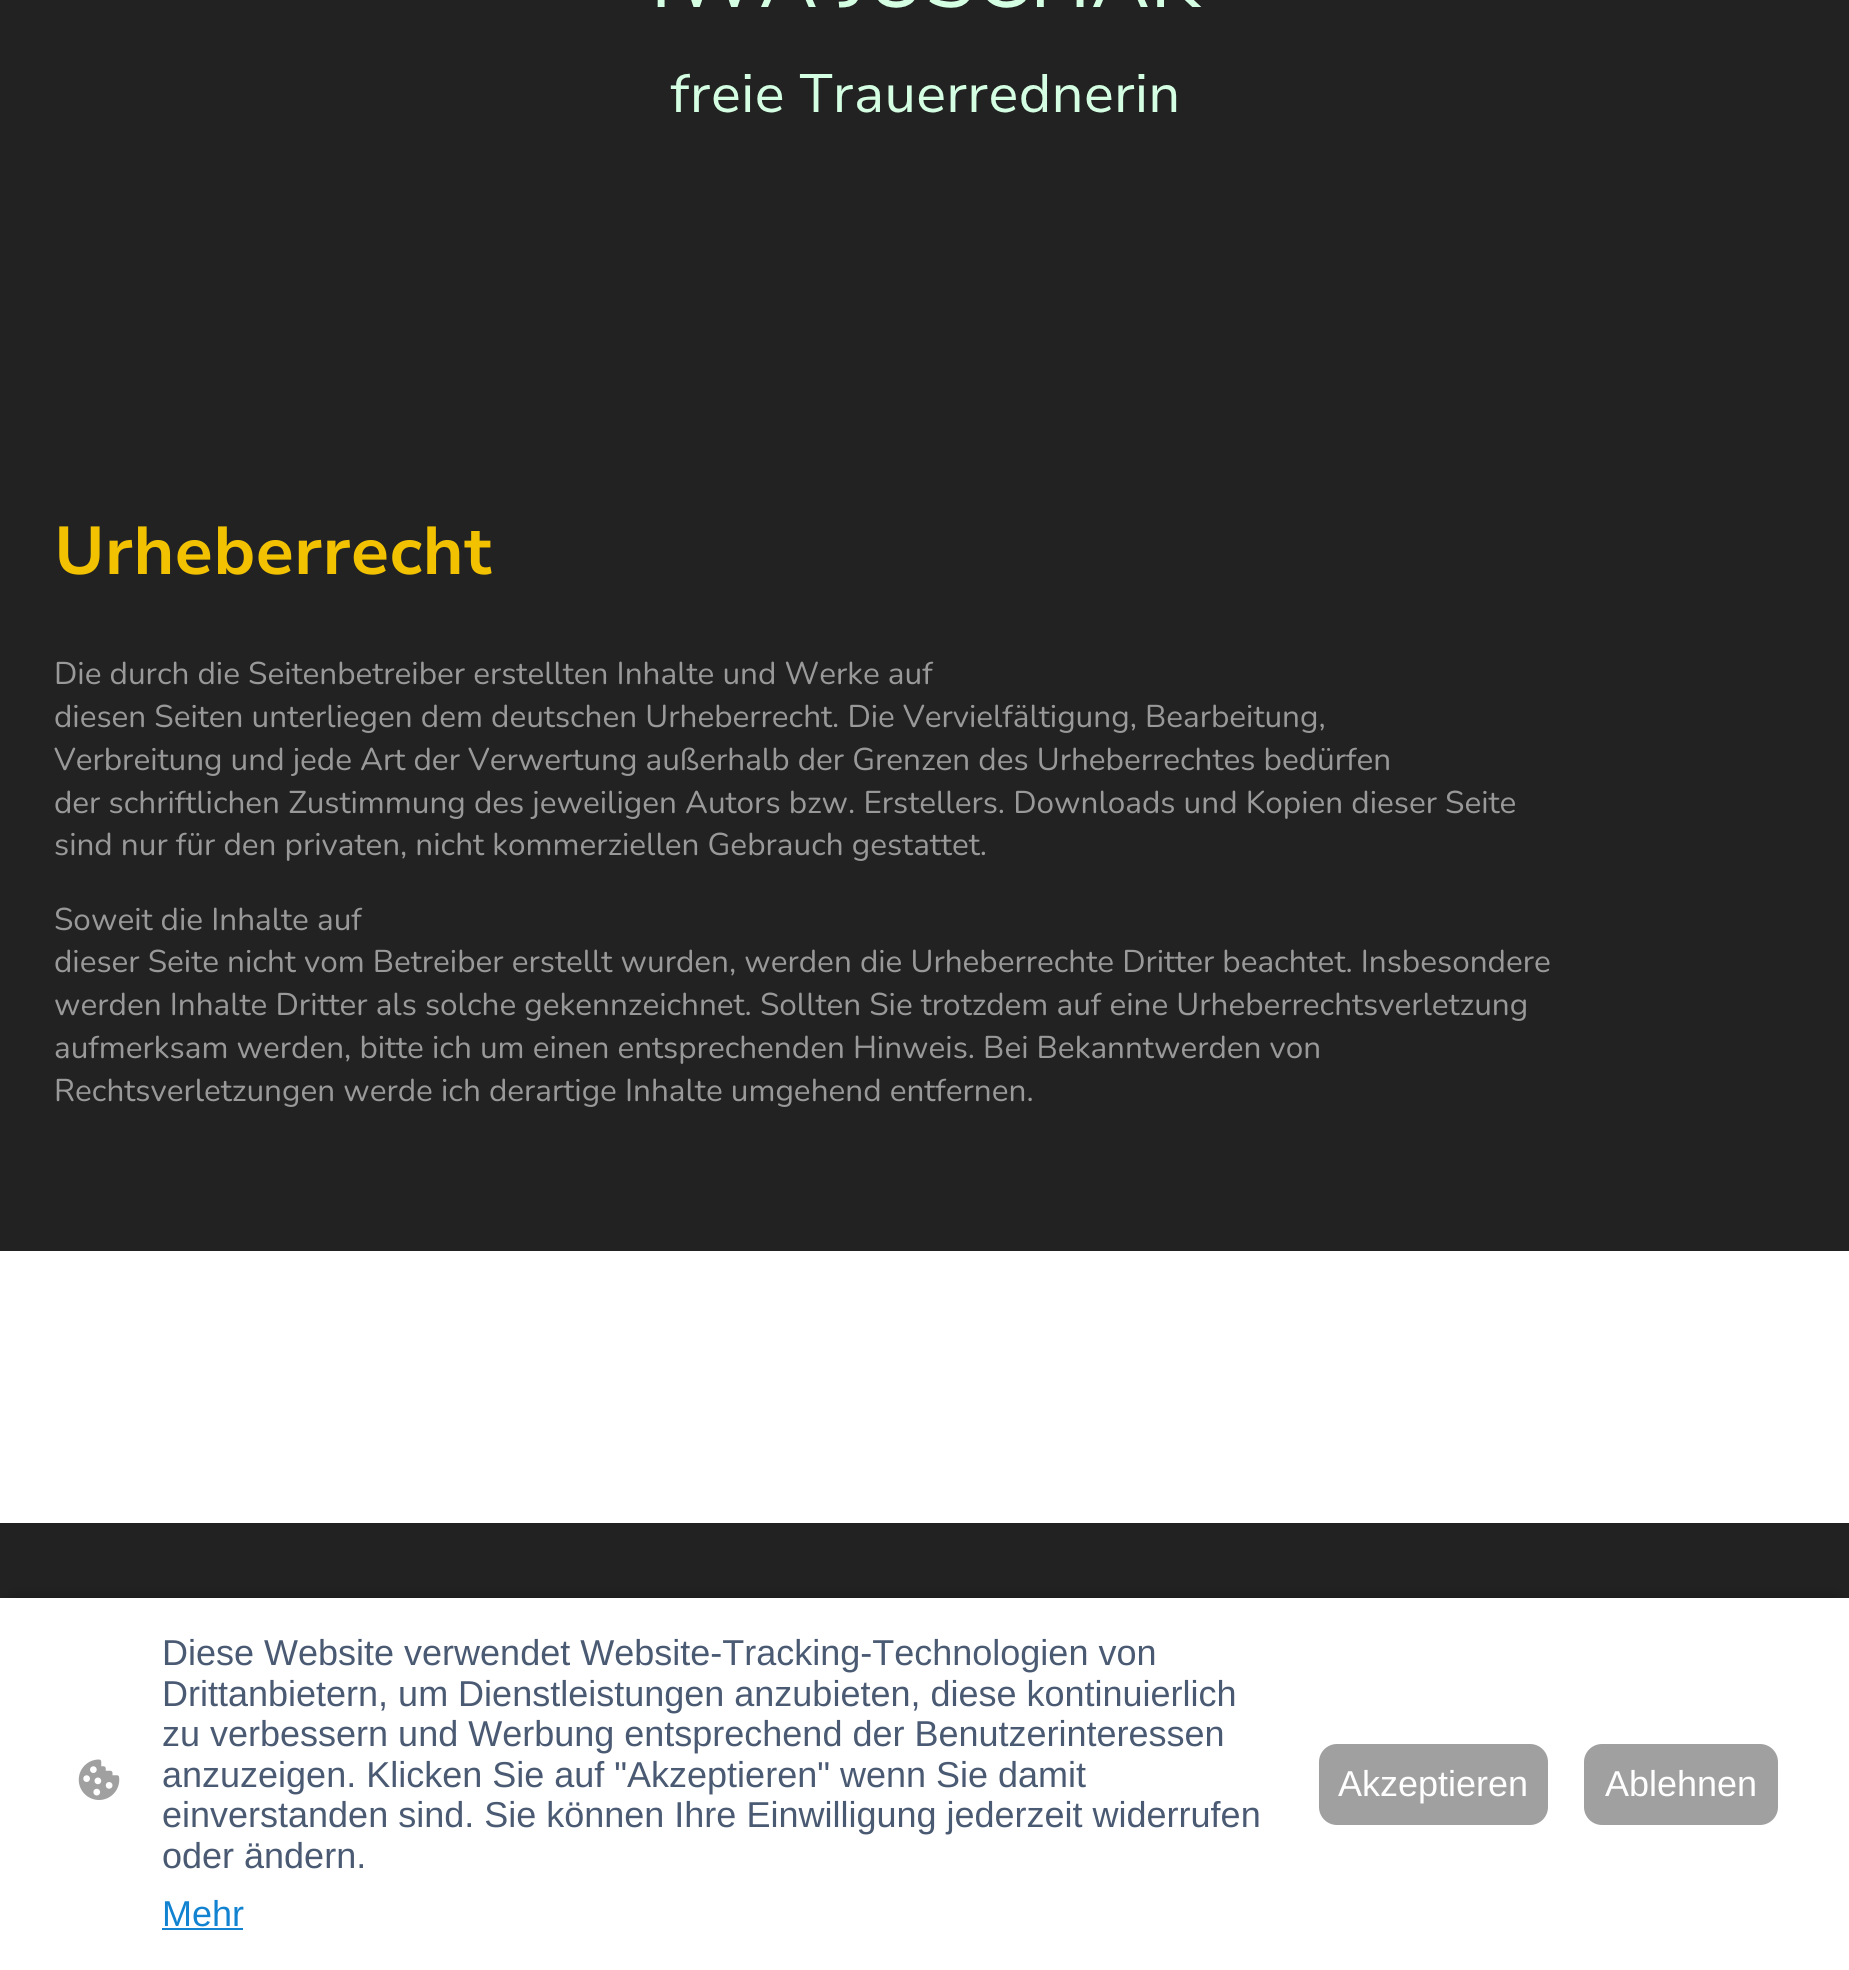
#include <cairo.h>
#include <math.h>
#include <stddef.h>

typedef struct { double x, y; const char *s; } line_t;

static void ink(cairo_t *ctx, unsigned color) {
    cairo_set_source_rgb(ctx, (color >> 16) / 255.0, (color >> 8 & 255) / 255.0, (color & 255) / 255.0);
}

static void round_path(cairo_t *ctx, double x, double y, double w, double h, double r) {
    cairo_new_sub_path(ctx);
    cairo_arc(ctx, x + w - r, y + h - r, r, 0, M_PI / 2);
    cairo_arc(ctx, x + r, y + h - r, r, M_PI / 2, M_PI);
    cairo_arc(ctx, x + r, y + r, r, M_PI, 1.5 * M_PI);
    cairo_arc(ctx, x + w - r, y + r, r, 1.5 * M_PI, 2 * M_PI);
    cairo_close_path(ctx);
}

static void blur_box(cairo_t *ctx, double x, double y, double w, double h, double r, double blur, double alpha) {
    cairo_push_group_with_content(ctx, CAIRO_CONTENT_ALPHA);
    cairo_set_operator(ctx, CAIRO_OPERATOR_SOURCE);
    for (int i = 15; i >= -15 && fmin(w, h) + blur * i / 3 > 0; i -= 2) {
        double e = blur * i / 6;
        cairo_set_source_rgba(ctx, 0, 0, 0, alpha * erfc((i - 1) / 8.5) / 2);
        round_path(ctx, x - e, y - e, w + 2 * e, h + 2 * e, fmax(0, fmin(r + e + blur * .6, fmin(w, h) / 2 + e)));
        cairo_fill(ctx);
    }
    cairo_pattern_t *soft = cairo_pop_group(ctx);
    cairo_mask(ctx, soft);
    cairo_pattern_destroy(soft);
}

static void paste(cairo_t *ctx, const char *path, double x, double y, double w, double h) {
    cairo_surface_t *image = cairo_image_surface_create_from_png(path);
    cairo_save(ctx);
    cairo_set_source_surface(ctx, image, x, y);
    cairo_rectangle(ctx, x, y, w, h);
    cairo_fill(ctx);
    cairo_restore(ctx);
    cairo_surface_destroy(image);
}

int main(void) {
    cairo_surface_t *surface = cairo_image_surface_create(CAIRO_FORMAT_RGB24, 1849, 1970);
    cairo_t *ctx = cairo_create(surface);
    cairo_font_options_t *options = cairo_font_options_create();
    cairo_font_options_set_hint_metrics(options, CAIRO_HINT_METRICS_OFF);
    cairo_font_options_set_hint_style(options, CAIRO_HINT_STYLE_NONE);
    cairo_set_font_options(ctx, options);
    cairo_set_miter_limit(ctx, 4);
    ink(ctx, 0xFFFFFF);
    cairo_paint(ctx);
    ink(ctx, 0x222222);
    cairo_rectangle(ctx, 0, 0, 1849, 1251);
    cairo_fill(ctx);
    paste(ctx, "media/1.png", 657, 0, 545, 113);
    cairo_select_font_face(ctx, "Nunito Sans", CAIRO_FONT_SLANT_NORMAL, CAIRO_FONT_WEIGHT_BOLD);
    cairo_set_font_size(ctx, 67.5);
    ink(ctx, 0xF2C200);
    cairo_move_to(ctx, 54, 574);
    cairo_show_text(ctx, "Urheberrecht");
    cairo_select_font_face(ctx, "Nunito", CAIRO_FONT_SLANT_NORMAL, CAIRO_FONT_WEIGHT_NORMAL);
    cairo_set_font_size(ctx, 31.5);
    ink(ctx, 0x999999);
    {
        static const line_t items[] = {
            {54, 684, "Die durch die Seitenbetreiber erstellten Inhalte und Werke auf"},
            {54, 727, "diesen Seiten unterliegen dem deutschen Urheberrecht. Die Vervielfältigung, Bearbeitung,"},
            {54, 770, "Verbreitung und jede Art der Verwertung außerhalb der Grenzen des Urheberrechtes bedürfen"},
            {54, 813, "der schriftlichen Zustimmung des jeweiligen Autors bzw. Erstellers. Downloads und Kopien dieser Seite"},
            {54, 855, "sind nur für den privaten, nicht kommerziellen Gebrauch gestattet."},
            {54, 930, "Soweit die Inhalte auf"},
            {54, 972, "dieser Seite nicht vom Betreiber erstellt wurden, werden die Urheberrechte Dritter beachtet. Insbesondere"},
            {54, 1015, "werden Inhalte Dritter als solche gekennzeichnet. Sollten Sie trotzdem auf eine Urheberrechtsverletzung"},
            {54, 1058, "aufmerksam werden, bitte ich um einen entsprechenden Hinweis. Bei Bekanntwerden von"},
            {54, 1101, "Rechtsverletzungen werde ich derartige Inhalte umgehend entfernen."},
        };
        for (size_t i = 0; i < sizeof items / sizeof *items; i++) {
            cairo_move_to(ctx, items[i].x, items[i].y);
            cairo_show_text(ctx, items[i].s);
        }
    }
    ink(ctx, 0x222222);
    cairo_rectangle(ctx, 0, 1523, 1849, 75);
    cairo_fill(ctx);
    ink(ctx, 0x000000);
    blur_box(ctx, 14, 1604, 1822, 347, 0, 9, 0.63);
    ink(ctx, 0xFFFFFF);
    cairo_rectangle(ctx, 0, 1598, 1849, 372);
    cairo_fill(ctx);
    paste(ctx, "media/2.png", 78, 1759, 42, 41);
    cairo_select_font_face(ctx, "Liberation Sans", CAIRO_FONT_SLANT_NORMAL, CAIRO_FONT_WEIGHT_NORMAL);
    cairo_set_font_size(ctx, 36);
    ink(ctx, 0x4A5A73);
    {
        static const line_t items[] = {
            {162, 1665, "Diese Website verwendet Website-Tracking-Technologien von"},
            {162, 1706, "Drittanbietern, um Dienstleistungen anzubieten, diese kontinuierlich"},
            {162, 1746, "zu verbessern und Werbung entsprechend der Benutzerinteressen"},
            {162, 1787, "anzuzeigen. Klicken Sie auf \"Akzeptieren\" wenn Sie damit"},
            {162, 1827, "einverstanden sind. Sie können Ihre Einwilligung jederzeit widerrufen"},
            {162, 1868, "oder ändern."},
        };
        for (size_t i = 0; i < sizeof items / sizeof *items; i++) {
            cairo_move_to(ctx, items[i].x, items[i].y);
            cairo_show_text(ctx, items[i].s);
        }
    }
    ink(ctx, 0x1183D1);
    cairo_move_to(ctx, 162, 1926);
    cairo_show_text(ctx, "Mehr");
    cairo_rectangle(ctx, 162, 1928, 81, 2);
    cairo_fill(ctx);
    ink(ctx, 0xA0A0A0);
    round_path(ctx, 1320, 1745, 227, 79, 17);
    cairo_fill_preserve(ctx);
    cairo_stroke(ctx);
    ink(ctx, 0xFFFFFF);
    cairo_move_to(ctx, 1338, 1796);
    cairo_show_text(ctx, "Akzeptieren");
    ink(ctx, 0xA0A0A0);
    round_path(ctx, 1585, 1745, 192, 79, 17);
    cairo_fill_preserve(ctx);
    cairo_stroke(ctx);
    ink(ctx, 0xFFFFFF);
    cairo_move_to(ctx, 1605, 1796);
    cairo_show_text(ctx, "Ablehnen");
    cairo_surface_write_to_png(surface, "image.png");
    cairo_font_options_destroy(options);
    cairo_destroy(ctx);
    cairo_surface_destroy(surface);
    return 0;
}
